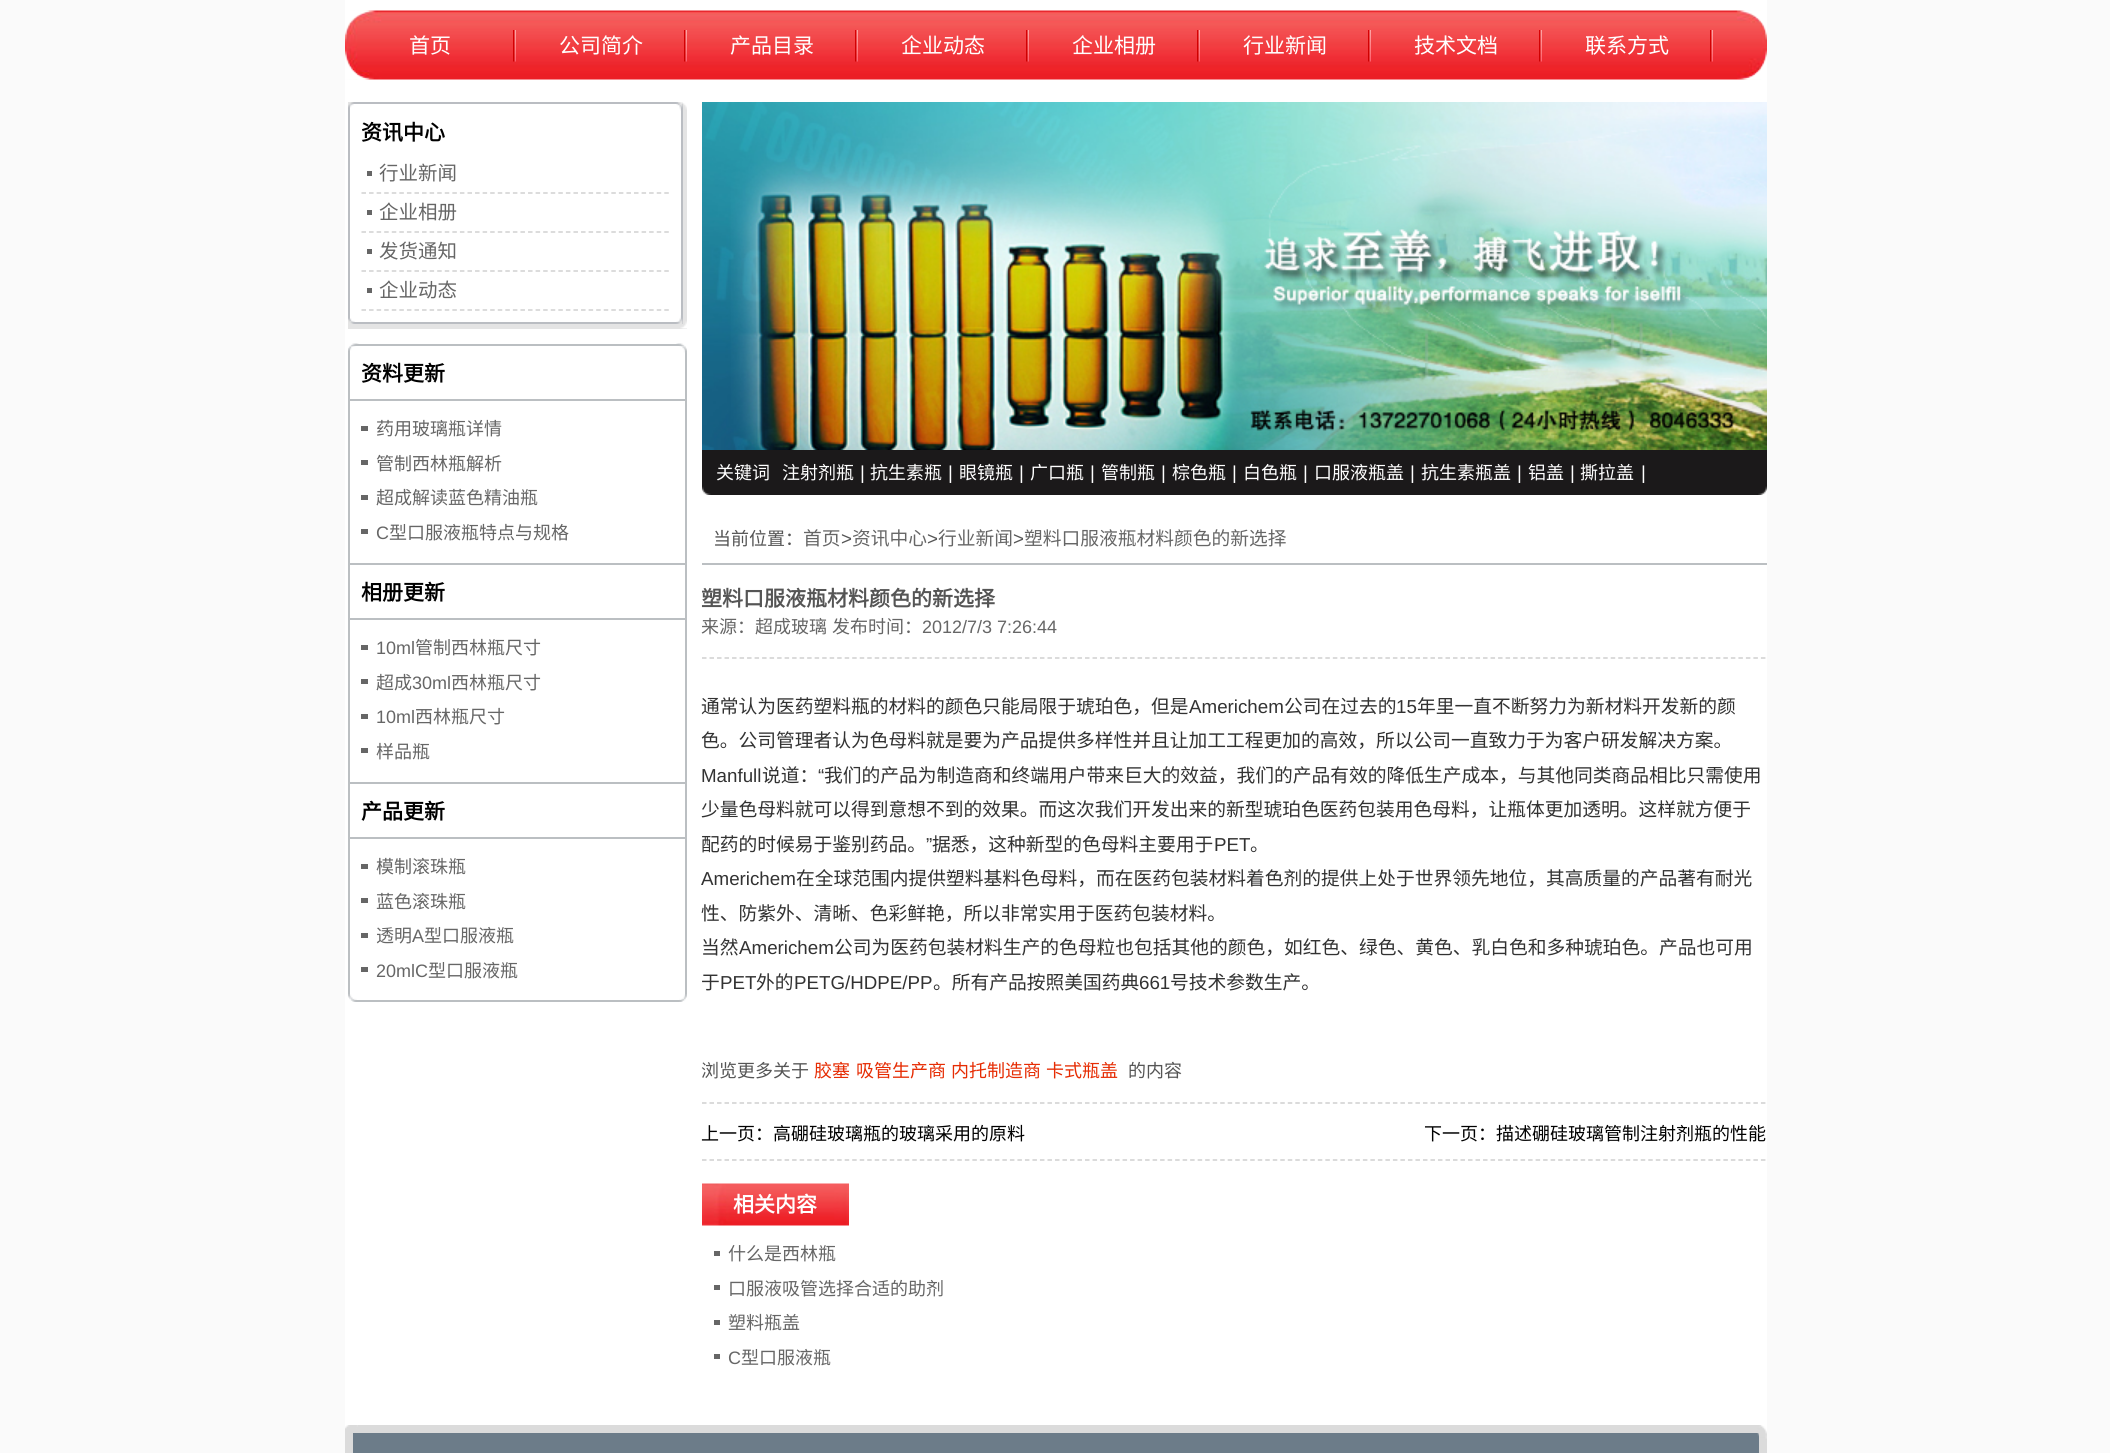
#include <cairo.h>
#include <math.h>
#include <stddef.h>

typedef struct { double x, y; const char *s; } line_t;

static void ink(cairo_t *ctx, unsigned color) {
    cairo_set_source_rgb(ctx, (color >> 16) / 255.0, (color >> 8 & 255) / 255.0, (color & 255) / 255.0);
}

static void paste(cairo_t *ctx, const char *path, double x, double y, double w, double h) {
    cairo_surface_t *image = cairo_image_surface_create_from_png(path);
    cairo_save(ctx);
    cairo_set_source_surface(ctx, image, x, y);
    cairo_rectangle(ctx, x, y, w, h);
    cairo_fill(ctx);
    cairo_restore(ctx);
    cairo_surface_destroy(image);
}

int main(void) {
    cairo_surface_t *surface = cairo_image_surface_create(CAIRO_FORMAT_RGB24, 2110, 1453);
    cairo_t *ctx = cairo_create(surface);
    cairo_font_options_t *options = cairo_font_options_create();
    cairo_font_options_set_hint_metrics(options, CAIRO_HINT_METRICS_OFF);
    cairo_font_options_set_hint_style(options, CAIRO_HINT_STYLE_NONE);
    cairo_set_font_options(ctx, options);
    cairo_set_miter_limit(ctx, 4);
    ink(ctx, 0xFAFAFA);
    cairo_paint(ctx);
    ink(ctx, 0xFFFFFF);
    cairo_rectangle(ctx, 345, 0, 1422, 1425);
    cairo_fill(ctx);
    paste(ctx, "media/1.png", 345, 10, 1422, 70);
    paste(ctx, "media/2.png", 345, 10, 29, 29);
    paste(ctx, "media/3.png", 1740, 10, 27, 30);
    paste(ctx, "media/4.png", 513, 30, 3, 32);
    cairo_select_font_face(ctx, "Noto Sans CJK SC", CAIRO_FONT_SLANT_NORMAL, CAIRO_FONT_WEIGHT_NORMAL);
    cairo_set_font_size(ctx, 21);
    cairo_move_to(ctx, 409, 53);
    cairo_show_text(ctx, "首页");
    paste(ctx, "media/5.png", 684, 30, 3, 32);
    cairo_move_to(ctx, 559, 53);
    cairo_show_text(ctx, "公司简介");
    paste(ctx, "media/5.png", 855, 30, 3, 32);
    cairo_move_to(ctx, 730, 53);
    cairo_show_text(ctx, "产品目录");
    paste(ctx, "media/4.png", 1026, 30, 3, 32);
    cairo_move_to(ctx, 901, 53);
    cairo_show_text(ctx, "企业动态");
    paste(ctx, "media/4.png", 1197, 30, 3, 32);
    cairo_move_to(ctx, 1072, 53);
    cairo_show_text(ctx, "企业相册");
    paste(ctx, "media/5.png", 1368, 30, 3, 32);
    cairo_move_to(ctx, 1243, 53);
    cairo_show_text(ctx, "行业新闻");
    paste(ctx, "media/5.png", 1539, 30, 3, 32);
    cairo_move_to(ctx, 1414, 53);
    cairo_show_text(ctx, "技术文档");
    paste(ctx, "media/5.png", 1710, 30, 3, 32);
    cairo_move_to(ctx, 1585, 53);
    cairo_show_text(ctx, "联系方式");
    paste(ctx, "media/6.png", 345, 51, 29, 29);
    paste(ctx, "media/7.png", 1737, 50, 30, 30);
    ink(ctx, 0xE4E4E4);
    cairo_rectangle(ctx, 348, 102, 339, 227);
    cairo_fill(ctx);
    ink(ctx, 0xFFFFFF);
    cairo_rectangle(ctx, 349, 103, 333, 220);
    cairo_fill_preserve(ctx);
    ink(ctx, 0xBABDC2);
    cairo_stroke(ctx);
    paste(ctx, "media/10.png", 676, 102, 7, 9);
    paste(ctx, "media/8.png", 680, 102, 7, 8);
    paste(ctx, "media/9.png", 348, 102, 6, 6);
    cairo_select_font_face(ctx, "Noto Sans CJK SC", CAIRO_FONT_SLANT_NORMAL, CAIRO_FONT_WEIGHT_BOLD);
    ink(ctx, 0x000000);
    cairo_move_to(ctx, 361, 140);
    cairo_show_text(ctx, "资讯中心");
    ink(ctx, 0x666666);
    cairo_rectangle(ctx, 367, 171, 5, 5);
    cairo_fill(ctx);
    cairo_new_path(ctx);
    cairo_move_to(ctx, 361.5, 193);
    cairo_line_to(ctx, 669, 193);
    ink(ctx, 0xD0D0D0);
    cairo_set_line_width(ctx, 1.5);
    cairo_set_dash(ctx, (double[]){4.5, 3.07}, 2, 0);
    cairo_stroke(ctx);
    cairo_select_font_face(ctx, "Noto Sans CJK SC", CAIRO_FONT_SLANT_NORMAL, CAIRO_FONT_WEIGHT_NORMAL);
    cairo_set_font_size(ctx, 19.5);
    ink(ctx, 0x666666);
    cairo_move_to(ctx, 379, 180);
    cairo_show_text(ctx, "行业新闻");
    cairo_rectangle(ctx, 367, 210, 5, 5);
    cairo_fill(ctx);
    cairo_new_path(ctx);
    cairo_move_to(ctx, 361.5, 232);
    cairo_line_to(ctx, 669, 232);
    ink(ctx, 0xD0D0D0);
    cairo_stroke(ctx);
    ink(ctx, 0x666666);
    cairo_move_to(ctx, 379, 219);
    cairo_show_text(ctx, "企业相册");
    cairo_rectangle(ctx, 367, 249, 5, 5);
    cairo_fill(ctx);
    cairo_new_path(ctx);
    cairo_move_to(ctx, 361.5, 271);
    cairo_line_to(ctx, 669, 271);
    ink(ctx, 0xD0D0D0);
    cairo_stroke(ctx);
    ink(ctx, 0x666666);
    cairo_move_to(ctx, 379, 258);
    cairo_show_text(ctx, "发货通知");
    cairo_rectangle(ctx, 367, 288, 5, 5);
    cairo_fill(ctx);
    cairo_new_path(ctx);
    cairo_move_to(ctx, 361.5, 310);
    cairo_line_to(ctx, 669, 310);
    ink(ctx, 0xD0D0D0);
    cairo_stroke(ctx);
    ink(ctx, 0x666666);
    cairo_move_to(ctx, 379, 297);
    cairo_show_text(ctx, "企业动态");
    paste(ctx, "media/11.png", 348, 318, 7, 6);
    paste(ctx, "media/12.png", 676, 315, 7, 9);
    paste(ctx, "media/13.png", 680, 321, 7, 8);
    cairo_rectangle(ctx, 349, 345, 337, 656);
    ink(ctx, 0xBBBFC2);
    cairo_set_line_width(ctx, 2);
    cairo_set_dash(ctx, NULL, 0, 0);
    cairo_stroke(ctx);
    paste(ctx, "media/14.png", 348, 343, 11, 8);
    paste(ctx, "media/15.png", 676, 343, 11, 10);
    cairo_rectangle(ctx, 350, 399, 336, 2);
    cairo_fill(ctx);
    cairo_select_font_face(ctx, "Noto Sans CJK SC", CAIRO_FONT_SLANT_NORMAL, CAIRO_FONT_WEIGHT_BOLD);
    cairo_set_font_size(ctx, 21);
    ink(ctx, 0x000000);
    cairo_move_to(ctx, 361, 381);
    cairo_show_text(ctx, "资料更新");
    ink(ctx, 0xBBBFC2);
    cairo_rectangle(ctx, 350, 563, 336, 2);
    cairo_fill(ctx);
    ink(ctx, 0x666666);
    cairo_rectangle(ctx, 361, 426, 7, 5);
    cairo_fill(ctx);
    cairo_select_font_face(ctx, "Noto Sans CJK SC", CAIRO_FONT_SLANT_NORMAL, CAIRO_FONT_WEIGHT_NORMAL);
    cairo_set_font_size(ctx, 18);
    cairo_move_to(ctx, 376, 435);
    cairo_show_text(ctx, "药用玻璃瓶详情");
    cairo_rectangle(ctx, 361, 460, 7, 5);
    cairo_fill(ctx);
    cairo_move_to(ctx, 376, 470);
    cairo_show_text(ctx, "管制西林瓶解析");
    cairo_rectangle(ctx, 361, 495, 7, 5);
    cairo_fill(ctx);
    cairo_move_to(ctx, 376, 504);
    cairo_show_text(ctx, "超成解读蓝色精油瓶");
    cairo_rectangle(ctx, 361, 529, 7, 5);
    cairo_fill(ctx);
    cairo_select_font_face(ctx, "Liberation Sans", CAIRO_FONT_SLANT_NORMAL, CAIRO_FONT_WEIGHT_NORMAL);
    cairo_move_to(ctx, 376, 539);
    cairo_show_text(ctx, "C");
    cairo_select_font_face(ctx, "Noto Sans CJK SC", CAIRO_FONT_SLANT_NORMAL, CAIRO_FONT_WEIGHT_NORMAL);
    cairo_move_to(ctx, 389, 539);
    cairo_show_text(ctx, "型口服液瓶特点与规格");
    ink(ctx, 0xBBBFC2);
    cairo_rectangle(ctx, 350, 618, 336, 2);
    cairo_fill(ctx);
    cairo_select_font_face(ctx, "Noto Sans CJK SC", CAIRO_FONT_SLANT_NORMAL, CAIRO_FONT_WEIGHT_BOLD);
    cairo_set_font_size(ctx, 21);
    ink(ctx, 0x000000);
    cairo_move_to(ctx, 361, 600);
    cairo_show_text(ctx, "相册更新");
    ink(ctx, 0xBBBFC2);
    cairo_rectangle(ctx, 350, 782, 336, 2);
    cairo_fill(ctx);
    ink(ctx, 0x666666);
    cairo_rectangle(ctx, 361, 645, 7, 5);
    cairo_fill(ctx);
    cairo_select_font_face(ctx, "Liberation Sans", CAIRO_FONT_SLANT_NORMAL, CAIRO_FONT_WEIGHT_NORMAL);
    cairo_set_font_size(ctx, 18);
    cairo_move_to(ctx, 376, 654);
    cairo_show_text(ctx, "10ml");
    cairo_select_font_face(ctx, "Noto Sans CJK SC", CAIRO_FONT_SLANT_NORMAL, CAIRO_FONT_WEIGHT_NORMAL);
    cairo_move_to(ctx, 415, 654);
    cairo_show_text(ctx, "管制西林瓶尺寸");
    cairo_rectangle(ctx, 361, 679, 7, 5);
    cairo_fill(ctx);
    cairo_move_to(ctx, 376, 689);
    cairo_show_text(ctx, "超成");
    cairo_select_font_face(ctx, "Liberation Sans", CAIRO_FONT_SLANT_NORMAL, CAIRO_FONT_WEIGHT_NORMAL);
    cairo_move_to(ctx, 412, 689);
    cairo_show_text(ctx, "30ml");
    cairo_select_font_face(ctx, "Noto Sans CJK SC", CAIRO_FONT_SLANT_NORMAL, CAIRO_FONT_WEIGHT_NORMAL);
    cairo_move_to(ctx, 451, 689);
    cairo_show_text(ctx, "西林瓶尺寸");
    cairo_rectangle(ctx, 361, 714, 7, 5);
    cairo_fill(ctx);
    cairo_select_font_face(ctx, "Liberation Sans", CAIRO_FONT_SLANT_NORMAL, CAIRO_FONT_WEIGHT_NORMAL);
    cairo_move_to(ctx, 376, 723);
    cairo_show_text(ctx, "10ml");
    cairo_select_font_face(ctx, "Noto Sans CJK SC", CAIRO_FONT_SLANT_NORMAL, CAIRO_FONT_WEIGHT_NORMAL);
    cairo_move_to(ctx, 415, 723);
    cairo_show_text(ctx, "西林瓶尺寸");
    cairo_rectangle(ctx, 361, 748, 7, 5);
    cairo_fill(ctx);
    cairo_move_to(ctx, 376, 758);
    cairo_show_text(ctx, "样品瓶");
    ink(ctx, 0xBBBFC2);
    cairo_rectangle(ctx, 350, 837, 336, 2);
    cairo_fill(ctx);
    cairo_select_font_face(ctx, "Noto Sans CJK SC", CAIRO_FONT_SLANT_NORMAL, CAIRO_FONT_WEIGHT_BOLD);
    cairo_set_font_size(ctx, 21);
    ink(ctx, 0x000000);
    cairo_move_to(ctx, 361, 819);
    cairo_show_text(ctx, "产品更新");
    ink(ctx, 0x666666);
    cairo_rectangle(ctx, 361, 864, 7, 5);
    cairo_fill(ctx);
    cairo_select_font_face(ctx, "Noto Sans CJK SC", CAIRO_FONT_SLANT_NORMAL, CAIRO_FONT_WEIGHT_NORMAL);
    cairo_set_font_size(ctx, 18);
    cairo_move_to(ctx, 376, 873);
    cairo_show_text(ctx, "模制滚珠瓶");
    cairo_rectangle(ctx, 361, 898, 7, 5);
    cairo_fill(ctx);
    cairo_move_to(ctx, 376, 908);
    cairo_show_text(ctx, "蓝色滚珠瓶");
    cairo_rectangle(ctx, 361, 933, 7, 5);
    cairo_fill(ctx);
    cairo_move_to(ctx, 376, 942);
    cairo_show_text(ctx, "透明");
    cairo_select_font_face(ctx, "Liberation Sans", CAIRO_FONT_SLANT_NORMAL, CAIRO_FONT_WEIGHT_NORMAL);
    cairo_move_to(ctx, 412, 942);
    cairo_show_text(ctx, "A");
    cairo_select_font_face(ctx, "Noto Sans CJK SC", CAIRO_FONT_SLANT_NORMAL, CAIRO_FONT_WEIGHT_NORMAL);
    cairo_move_to(ctx, 424, 942);
    cairo_show_text(ctx, "型口服液瓶");
    cairo_rectangle(ctx, 361, 967, 7, 5);
    cairo_fill(ctx);
    cairo_select_font_face(ctx, "Liberation Sans", CAIRO_FONT_SLANT_NORMAL, CAIRO_FONT_WEIGHT_NORMAL);
    cairo_move_to(ctx, 376, 977);
    cairo_show_text(ctx, "20mlC");
    cairo_select_font_face(ctx, "Noto Sans CJK SC", CAIRO_FONT_SLANT_NORMAL, CAIRO_FONT_WEIGHT_NORMAL);
    cairo_move_to(ctx, 428, 977);
    cairo_show_text(ctx, "型口服液瓶");
    paste(ctx, "media/16.png", 348, 994, 9, 8);
    paste(ctx, "media/17.png", 679, 994, 8, 8);
    paste(ctx, "media/18.png", 702, 102, 1065, 348);
    ink(ctx, 0x1B191A);
    cairo_rectangle(ctx, 702, 450, 1065, 45);
    cairo_fill(ctx);
    ink(ctx, 0xFFFFFF);
    cairo_move_to(ctx, 716, 479);
    cairo_show_text(ctx, "关键词");
    cairo_move_to(ctx, 782, 479);
    cairo_show_text(ctx, "注射剂瓶");
    cairo_select_font_face(ctx, "Liberation Sans", CAIRO_FONT_SLANT_NORMAL, CAIRO_FONT_WEIGHT_NORMAL);
    cairo_set_font_size(ctx, 18.75);
    cairo_move_to(ctx, 860, 479);
    cairo_show_text(ctx, "|");
    cairo_select_font_face(ctx, "Noto Sans CJK SC", CAIRO_FONT_SLANT_NORMAL, CAIRO_FONT_WEIGHT_NORMAL);
    cairo_set_font_size(ctx, 18);
    cairo_move_to(ctx, 870, 479);
    cairo_show_text(ctx, "抗生素瓶");
    cairo_select_font_face(ctx, "Liberation Sans", CAIRO_FONT_SLANT_NORMAL, CAIRO_FONT_WEIGHT_NORMAL);
    cairo_set_font_size(ctx, 18.75);
    cairo_move_to(ctx, 948, 479);
    cairo_show_text(ctx, "|");
    cairo_select_font_face(ctx, "Noto Sans CJK SC", CAIRO_FONT_SLANT_NORMAL, CAIRO_FONT_WEIGHT_NORMAL);
    cairo_set_font_size(ctx, 18);
    cairo_move_to(ctx, 959, 479);
    cairo_show_text(ctx, "眼镜瓶");
    cairo_select_font_face(ctx, "Liberation Sans", CAIRO_FONT_SLANT_NORMAL, CAIRO_FONT_WEIGHT_NORMAL);
    cairo_set_font_size(ctx, 18.75);
    cairo_move_to(ctx, 1019, 479);
    cairo_show_text(ctx, "|");
    cairo_select_font_face(ctx, "Noto Sans CJK SC", CAIRO_FONT_SLANT_NORMAL, CAIRO_FONT_WEIGHT_NORMAL);
    cairo_set_font_size(ctx, 18);
    cairo_move_to(ctx, 1030, 479);
    cairo_show_text(ctx, "广口瓶");
    cairo_select_font_face(ctx, "Liberation Sans", CAIRO_FONT_SLANT_NORMAL, CAIRO_FONT_WEIGHT_NORMAL);
    cairo_set_font_size(ctx, 18.75);
    cairo_move_to(ctx, 1090, 479);
    cairo_show_text(ctx, "|");
    cairo_select_font_face(ctx, "Noto Sans CJK SC", CAIRO_FONT_SLANT_NORMAL, CAIRO_FONT_WEIGHT_NORMAL);
    cairo_set_font_size(ctx, 18);
    cairo_move_to(ctx, 1101, 479);
    cairo_show_text(ctx, "管制瓶");
    cairo_select_font_face(ctx, "Liberation Sans", CAIRO_FONT_SLANT_NORMAL, CAIRO_FONT_WEIGHT_NORMAL);
    cairo_set_font_size(ctx, 18.75);
    cairo_move_to(ctx, 1161, 479);
    cairo_show_text(ctx, "|");
    cairo_select_font_face(ctx, "Noto Sans CJK SC", CAIRO_FONT_SLANT_NORMAL, CAIRO_FONT_WEIGHT_NORMAL);
    cairo_set_font_size(ctx, 18);
    cairo_move_to(ctx, 1172, 479);
    cairo_show_text(ctx, "棕色瓶");
    cairo_select_font_face(ctx, "Liberation Sans", CAIRO_FONT_SLANT_NORMAL, CAIRO_FONT_WEIGHT_NORMAL);
    cairo_set_font_size(ctx, 18.75);
    cairo_move_to(ctx, 1232, 479);
    cairo_show_text(ctx, "|");
    cairo_select_font_face(ctx, "Noto Sans CJK SC", CAIRO_FONT_SLANT_NORMAL, CAIRO_FONT_WEIGHT_NORMAL);
    cairo_set_font_size(ctx, 18);
    cairo_move_to(ctx, 1243, 479);
    cairo_show_text(ctx, "白色瓶");
    cairo_select_font_face(ctx, "Liberation Sans", CAIRO_FONT_SLANT_NORMAL, CAIRO_FONT_WEIGHT_NORMAL);
    cairo_set_font_size(ctx, 18.75);
    cairo_move_to(ctx, 1303, 479);
    cairo_show_text(ctx, "|");
    cairo_select_font_face(ctx, "Noto Sans CJK SC", CAIRO_FONT_SLANT_NORMAL, CAIRO_FONT_WEIGHT_NORMAL);
    cairo_set_font_size(ctx, 18);
    cairo_move_to(ctx, 1314, 479);
    cairo_show_text(ctx, "口服液瓶盖");
    cairo_select_font_face(ctx, "Liberation Sans", CAIRO_FONT_SLANT_NORMAL, CAIRO_FONT_WEIGHT_NORMAL);
    cairo_set_font_size(ctx, 18.75);
    cairo_move_to(ctx, 1410, 479);
    cairo_show_text(ctx, "|");
    cairo_select_font_face(ctx, "Noto Sans CJK SC", CAIRO_FONT_SLANT_NORMAL, CAIRO_FONT_WEIGHT_NORMAL);
    cairo_set_font_size(ctx, 18);
    cairo_move_to(ctx, 1421, 479);
    cairo_show_text(ctx, "抗生素瓶盖");
    cairo_select_font_face(ctx, "Liberation Sans", CAIRO_FONT_SLANT_NORMAL, CAIRO_FONT_WEIGHT_NORMAL);
    cairo_set_font_size(ctx, 18.75);
    cairo_move_to(ctx, 1517, 479);
    cairo_show_text(ctx, "|");
    cairo_select_font_face(ctx, "Noto Sans CJK SC", CAIRO_FONT_SLANT_NORMAL, CAIRO_FONT_WEIGHT_NORMAL);
    cairo_set_font_size(ctx, 18);
    cairo_move_to(ctx, 1528, 479);
    cairo_show_text(ctx, "铝盖");
    cairo_select_font_face(ctx, "Liberation Sans", CAIRO_FONT_SLANT_NORMAL, CAIRO_FONT_WEIGHT_NORMAL);
    cairo_set_font_size(ctx, 18.75);
    cairo_move_to(ctx, 1570, 479);
    cairo_show_text(ctx, "|");
    cairo_select_font_face(ctx, "Noto Sans CJK SC", CAIRO_FONT_SLANT_NORMAL, CAIRO_FONT_WEIGHT_NORMAL);
    cairo_set_font_size(ctx, 18);
    cairo_move_to(ctx, 1580, 479);
    cairo_show_text(ctx, "撕拉盖");
    cairo_select_font_face(ctx, "Liberation Sans", CAIRO_FONT_SLANT_NORMAL, CAIRO_FONT_WEIGHT_NORMAL);
    cairo_set_font_size(ctx, 18.75);
    cairo_move_to(ctx, 1641, 479);
    cairo_show_text(ctx, "|");
    paste(ctx, "media/19.png", 702, 486, 9, 9);
    paste(ctx, "media/20.png", 1758, 486, 9, 9);
    ink(ctx, 0xBBBFC2);
    cairo_rectangle(ctx, 702, 563, 1065, 2);
    cairo_fill(ctx);
    cairo_select_font_face(ctx, "Noto Sans CJK SC", CAIRO_FONT_SLANT_NORMAL, CAIRO_FONT_WEIGHT_NORMAL);
    cairo_set_font_size(ctx, 18);
    ink(ctx, 0x555555);
    cairo_move_to(ctx, 713, 545);
    cairo_show_text(ctx, "当前位置：");
    cairo_set_font_size(ctx, 18.75);
    ink(ctx, 0x666666);
    cairo_move_to(ctx, 803, 545);
    cairo_show_text(ctx, "首页");
    cairo_select_font_face(ctx, "Liberation Sans", CAIRO_FONT_SLANT_NORMAL, CAIRO_FONT_WEIGHT_NORMAL);
    ink(ctx, 0x555555);
    cairo_move_to(ctx, 841, 545);
    cairo_show_text(ctx, ">");
    cairo_select_font_face(ctx, "Noto Sans CJK SC", CAIRO_FONT_SLANT_NORMAL, CAIRO_FONT_WEIGHT_NORMAL);
    ink(ctx, 0x666666);
    cairo_move_to(ctx, 852, 545);
    cairo_show_text(ctx, "资讯中心");
    cairo_select_font_face(ctx, "Liberation Sans", CAIRO_FONT_SLANT_NORMAL, CAIRO_FONT_WEIGHT_NORMAL);
    ink(ctx, 0x555555);
    cairo_move_to(ctx, 927, 545);
    cairo_show_text(ctx, ">");
    cairo_select_font_face(ctx, "Noto Sans CJK SC", CAIRO_FONT_SLANT_NORMAL, CAIRO_FONT_WEIGHT_NORMAL);
    ink(ctx, 0x666666);
    cairo_move_to(ctx, 938, 545);
    cairo_show_text(ctx, "行业新闻");
    cairo_select_font_face(ctx, "Liberation Sans", CAIRO_FONT_SLANT_NORMAL, CAIRO_FONT_WEIGHT_NORMAL);
    ink(ctx, 0x555555);
    cairo_move_to(ctx, 1013, 545);
    cairo_show_text(ctx, ">");
    cairo_select_font_face(ctx, "Noto Sans CJK SC", CAIRO_FONT_SLANT_NORMAL, CAIRO_FONT_WEIGHT_NORMAL);
    ink(ctx, 0x666666);
    cairo_move_to(ctx, 1024, 545);
    cairo_show_text(ctx, "塑料口服液瓶材料颜色的新选择");
    cairo_new_path(ctx);
    cairo_move_to(ctx, 702, 658);
    cairo_line_to(ctx, 1767, 658);
    ink(ctx, 0xCFCFCF);
    cairo_set_line_width(ctx, 1.5);
    cairo_set_dash(ctx, (double[]){4.5, 3.01}, 2, 0);
    cairo_stroke(ctx);
    cairo_select_font_face(ctx, "Noto Sans CJK SC", CAIRO_FONT_SLANT_NORMAL, CAIRO_FONT_WEIGHT_BOLD);
    cairo_set_font_size(ctx, 21);
    ink(ctx, 0x555555);
    cairo_move_to(ctx, 701, 606);
    cairo_show_text(ctx, "塑料口服液瓶材料颜色的新选择");
    cairo_select_font_face(ctx, "Noto Sans CJK SC", CAIRO_FONT_SLANT_NORMAL, CAIRO_FONT_WEIGHT_NORMAL);
    cairo_set_font_size(ctx, 18);
    ink(ctx, 0x666666);
    {
        static const line_t items[] = {
            {701, 633, "来源："},
            {755, 633, "超成玻璃"},
            {832, 633, "发布时间："},
        };
        for (size_t i = 0; i < sizeof items / sizeof *items; i++) {
            cairo_move_to(ctx, items[i].x, items[i].y);
            cairo_show_text(ctx, items[i].s);
        }
    }
    cairo_select_font_face(ctx, "Liberation Sans", CAIRO_FONT_SLANT_NORMAL, CAIRO_FONT_WEIGHT_NORMAL);
    cairo_move_to(ctx, 922, 633);
    cairo_show_text(ctx, "2012/7/3 7:26:44");
    cairo_select_font_face(ctx, "Noto Sans CJK SC", CAIRO_FONT_SLANT_NORMAL, CAIRO_FONT_WEIGHT_NORMAL);
    cairo_set_font_size(ctx, 18.75);
    ink(ctx, 0x323232);
    cairo_move_to(ctx, 701, 713);
    cairo_show_text(ctx, "通常认为医药塑料瓶的材料的颜色只能局限于琥珀色，但是");
    cairo_select_font_face(ctx, "Liberation Sans", CAIRO_FONT_SLANT_NORMAL, CAIRO_FONT_WEIGHT_NORMAL);
    cairo_move_to(ctx, 1189, 713);
    cairo_show_text(ctx, "Americhem");
    cairo_select_font_face(ctx, "Noto Sans CJK SC", CAIRO_FONT_SLANT_NORMAL, CAIRO_FONT_WEIGHT_NORMAL);
    cairo_move_to(ctx, 1284, 713);
    cairo_show_text(ctx, "公司在过去的");
    cairo_select_font_face(ctx, "Liberation Sans", CAIRO_FONT_SLANT_NORMAL, CAIRO_FONT_WEIGHT_NORMAL);
    cairo_move_to(ctx, 1396, 713);
    cairo_show_text(ctx, "15");
    cairo_select_font_face(ctx, "Noto Sans CJK SC", CAIRO_FONT_SLANT_NORMAL, CAIRO_FONT_WEIGHT_NORMAL);
    cairo_move_to(ctx, 1417, 713);
    cairo_show_text(ctx, "年里一直不断努力为新材料开发新的颜");
    cairo_move_to(ctx, 701, 747);
    cairo_show_text(ctx, "色。公司管理者认为色母料就是要为产品提供多样性并且让加工工程更加的高效，所以公司一直致力于为客户研发解决方案。");
    cairo_select_font_face(ctx, "Liberation Sans", CAIRO_FONT_SLANT_NORMAL, CAIRO_FONT_WEIGHT_NORMAL);
    cairo_move_to(ctx, 701, 782);
    cairo_show_text(ctx, "Manfull");
    cairo_select_font_face(ctx, "Noto Sans CJK SC", CAIRO_FONT_SLANT_NORMAL, CAIRO_FONT_WEIGHT_NORMAL);
    cairo_move_to(ctx, 762, 782);
    cairo_show_text(ctx, "说道：");
    cairo_select_font_face(ctx, "Liberation Sans", CAIRO_FONT_SLANT_NORMAL, CAIRO_FONT_WEIGHT_NORMAL);
    cairo_move_to(ctx, 818, 782);
    cairo_show_text(ctx, "“");
    cairo_select_font_face(ctx, "Noto Sans CJK SC", CAIRO_FONT_SLANT_NORMAL, CAIRO_FONT_WEIGHT_NORMAL);
    {
        static const line_t items[] = {
            {824, 782, "我们的产品为制造商和终端用户带来巨大的效益，我们的产品有效的降低生产成本，与其他同类商品相比只需使用"},
            {701, 816, "少量色母料就可以得到意想不到的效果。而这次我们开发出来的新型琥珀色医药包装用色母料，让瓶体更加透明。这样就方便于"},
            {701, 851, "配药的时候易于鉴别药品。"},
        };
        for (size_t i = 0; i < sizeof items / sizeof *items; i++) {
            cairo_move_to(ctx, items[i].x, items[i].y);
            cairo_show_text(ctx, items[i].s);
        }
    }
    cairo_select_font_face(ctx, "Liberation Sans", CAIRO_FONT_SLANT_NORMAL, CAIRO_FONT_WEIGHT_NORMAL);
    cairo_move_to(ctx, 926, 851);
    cairo_show_text(ctx, "”");
    cairo_select_font_face(ctx, "Noto Sans CJK SC", CAIRO_FONT_SLANT_NORMAL, CAIRO_FONT_WEIGHT_NORMAL);
    cairo_move_to(ctx, 932, 851);
    cairo_show_text(ctx, "据悉，这种新型的色母料主要用于");
    cairo_select_font_face(ctx, "Liberation Sans", CAIRO_FONT_SLANT_NORMAL, CAIRO_FONT_WEIGHT_NORMAL);
    cairo_move_to(ctx, 1214, 851);
    cairo_show_text(ctx, "PET");
    cairo_select_font_face(ctx, "Noto Sans CJK SC", CAIRO_FONT_SLANT_NORMAL, CAIRO_FONT_WEIGHT_NORMAL);
    cairo_move_to(ctx, 1250, 851);
    cairo_show_text(ctx, "。");
    cairo_select_font_face(ctx, "Liberation Sans", CAIRO_FONT_SLANT_NORMAL, CAIRO_FONT_WEIGHT_NORMAL);
    cairo_move_to(ctx, 701, 885);
    cairo_show_text(ctx, "Americhem");
    cairo_select_font_face(ctx, "Noto Sans CJK SC", CAIRO_FONT_SLANT_NORMAL, CAIRO_FONT_WEIGHT_NORMAL);
    {
        static const line_t items[] = {
            {796, 885, "在全球范围内提供塑料基料色母料，而在医药包装材料着色剂的提供上处于世界领先地位，其高质量的产品著有耐光"},
            {701, 920, "性、防紫外、清晰、色彩鲜艳，所以非常实用于医药包装材料。"},
            {701, 954, "当然"},
        };
        for (size_t i = 0; i < sizeof items / sizeof *items; i++) {
            cairo_move_to(ctx, items[i].x, items[i].y);
            cairo_show_text(ctx, items[i].s);
        }
    }
    cairo_select_font_face(ctx, "Liberation Sans", CAIRO_FONT_SLANT_NORMAL, CAIRO_FONT_WEIGHT_NORMAL);
    cairo_move_to(ctx, 739, 954);
    cairo_show_text(ctx, "Americhem");
    cairo_select_font_face(ctx, "Noto Sans CJK SC", CAIRO_FONT_SLANT_NORMAL, CAIRO_FONT_WEIGHT_NORMAL);
    cairo_move_to(ctx, 834, 954);
    cairo_show_text(ctx, "公司为医药包装材料生产的色母粒也包括其他的颜色，如红色、绿色、黄色、乳白色和多种琥珀色。产品也可用");
    cairo_move_to(ctx, 701, 989);
    cairo_show_text(ctx, "于");
    cairo_select_font_face(ctx, "Liberation Sans", CAIRO_FONT_SLANT_NORMAL, CAIRO_FONT_WEIGHT_NORMAL);
    cairo_move_to(ctx, 720, 989);
    cairo_show_text(ctx, "PET");
    cairo_select_font_face(ctx, "Noto Sans CJK SC", CAIRO_FONT_SLANT_NORMAL, CAIRO_FONT_WEIGHT_NORMAL);
    cairo_move_to(ctx, 756, 989);
    cairo_show_text(ctx, "外的");
    cairo_select_font_face(ctx, "Liberation Sans", CAIRO_FONT_SLANT_NORMAL, CAIRO_FONT_WEIGHT_NORMAL);
    cairo_move_to(ctx, 794, 989);
    cairo_show_text(ctx, "PETG/HDPE/PP");
    cairo_select_font_face(ctx, "Noto Sans CJK SC", CAIRO_FONT_SLANT_NORMAL, CAIRO_FONT_WEIGHT_NORMAL);
    cairo_move_to(ctx, 933, 989);
    cairo_show_text(ctx, "。所有产品按照美国药典");
    cairo_select_font_face(ctx, "Liberation Sans", CAIRO_FONT_SLANT_NORMAL, CAIRO_FONT_WEIGHT_NORMAL);
    cairo_move_to(ctx, 1139, 989);
    cairo_show_text(ctx, "661");
    cairo_select_font_face(ctx, "Noto Sans CJK SC", CAIRO_FONT_SLANT_NORMAL, CAIRO_FONT_WEIGHT_NORMAL);
    cairo_move_to(ctx, 1170, 989);
    cairo_show_text(ctx, "号技术参数生产。");
    cairo_new_path(ctx);
    cairo_move_to(ctx, 702, 1103);
    cairo_line_to(ctx, 1767, 1103);
    ink(ctx, 0xCFCFCF);
    cairo_stroke(ctx);
    cairo_set_font_size(ctx, 18);
    ink(ctx, 0x555555);
    cairo_move_to(ctx, 701, 1077);
    cairo_show_text(ctx, "浏览更多关于");
    ink(ctx, 0xE62C03);
    {
        static const line_t items[] = {
            {814, 1077, "胶塞"},
            {856, 1077, "吸管生产商"},
            {951, 1077, "内托制造商"},
            {1046, 1077, "卡式瓶盖"},
        };
        for (size_t i = 0; i < sizeof items / sizeof *items; i++) {
            cairo_move_to(ctx, items[i].x, items[i].y);
            cairo_show_text(ctx, items[i].s);
        }
    }
    ink(ctx, 0x555555);
    cairo_move_to(ctx, 1128, 1077);
    cairo_show_text(ctx, "的内容");
    cairo_new_path(ctx);
    cairo_move_to(ctx, 702, 1160);
    cairo_line_to(ctx, 1767, 1160);
    ink(ctx, 0xCFCFCF);
    cairo_stroke(ctx);
    ink(ctx, 0x000000);
    cairo_move_to(ctx, 701, 1140);
    cairo_show_text(ctx, "上一页：高硼硅玻璃瓶的玻璃采用的原料");
    cairo_move_to(ctx, 1424, 1140);
    cairo_show_text(ctx, "下一页：描述硼硅玻璃管制注射剂瓶的性能");
    paste(ctx, "media/21.png", 702, 1183, 147, 43);
    cairo_select_font_face(ctx, "Noto Sans CJK SC", CAIRO_FONT_SLANT_NORMAL, CAIRO_FONT_WEIGHT_BOLD);
    cairo_set_font_size(ctx, 21);
    ink(ctx, 0xFFFFFF);
    cairo_move_to(ctx, 733, 1212);
    cairo_show_text(ctx, "相关内容");
    ink(ctx, 0x666666);
    cairo_rectangle(ctx, 714, 1251, 6, 5);
    cairo_fill(ctx);
    cairo_select_font_face(ctx, "Noto Sans CJK SC", CAIRO_FONT_SLANT_NORMAL, CAIRO_FONT_WEIGHT_NORMAL);
    cairo_set_font_size(ctx, 18);
    cairo_move_to(ctx, 728, 1260);
    cairo_show_text(ctx, "什么是西林瓶");
    cairo_rectangle(ctx, 714, 1285, 6, 5);
    cairo_fill(ctx);
    cairo_move_to(ctx, 728, 1295);
    cairo_show_text(ctx, "口服液吸管选择合适的助剂");
    cairo_rectangle(ctx, 714, 1320, 6, 5);
    cairo_fill(ctx);
    cairo_move_to(ctx, 728, 1329);
    cairo_show_text(ctx, "塑料瓶盖");
    cairo_rectangle(ctx, 714, 1354, 6, 5);
    cairo_fill(ctx);
    cairo_select_font_face(ctx, "Liberation Sans", CAIRO_FONT_SLANT_NORMAL, CAIRO_FONT_WEIGHT_NORMAL);
    cairo_move_to(ctx, 728, 1364);
    cairo_show_text(ctx, "C");
    cairo_select_font_face(ctx, "Noto Sans CJK SC", CAIRO_FONT_SLANT_NORMAL, CAIRO_FONT_WEIGHT_NORMAL);
    cairo_move_to(ctx, 741, 1364);
    cairo_show_text(ctx, "型口服液瓶");
    ink(ctx, 0x6C7C89);
    cairo_rectangle(ctx, 349, 1429, 1414, 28);
    cairo_fill_preserve(ctx);
    ink(ctx, 0xDBDBDB);
    cairo_set_line_width(ctx, 8);
    cairo_set_dash(ctx, NULL, 0, 0);
    cairo_stroke(ctx);
    paste(ctx, "media/22.png", 345, 1425, 13, 4);
    paste(ctx, "media/23.png", 1757, 1425, 10, 14);
    cairo_surface_write_to_png(surface, "image.png");
    cairo_font_options_destroy(options);
    cairo_destroy(ctx);
    cairo_surface_destroy(surface);
    return 0;
}
